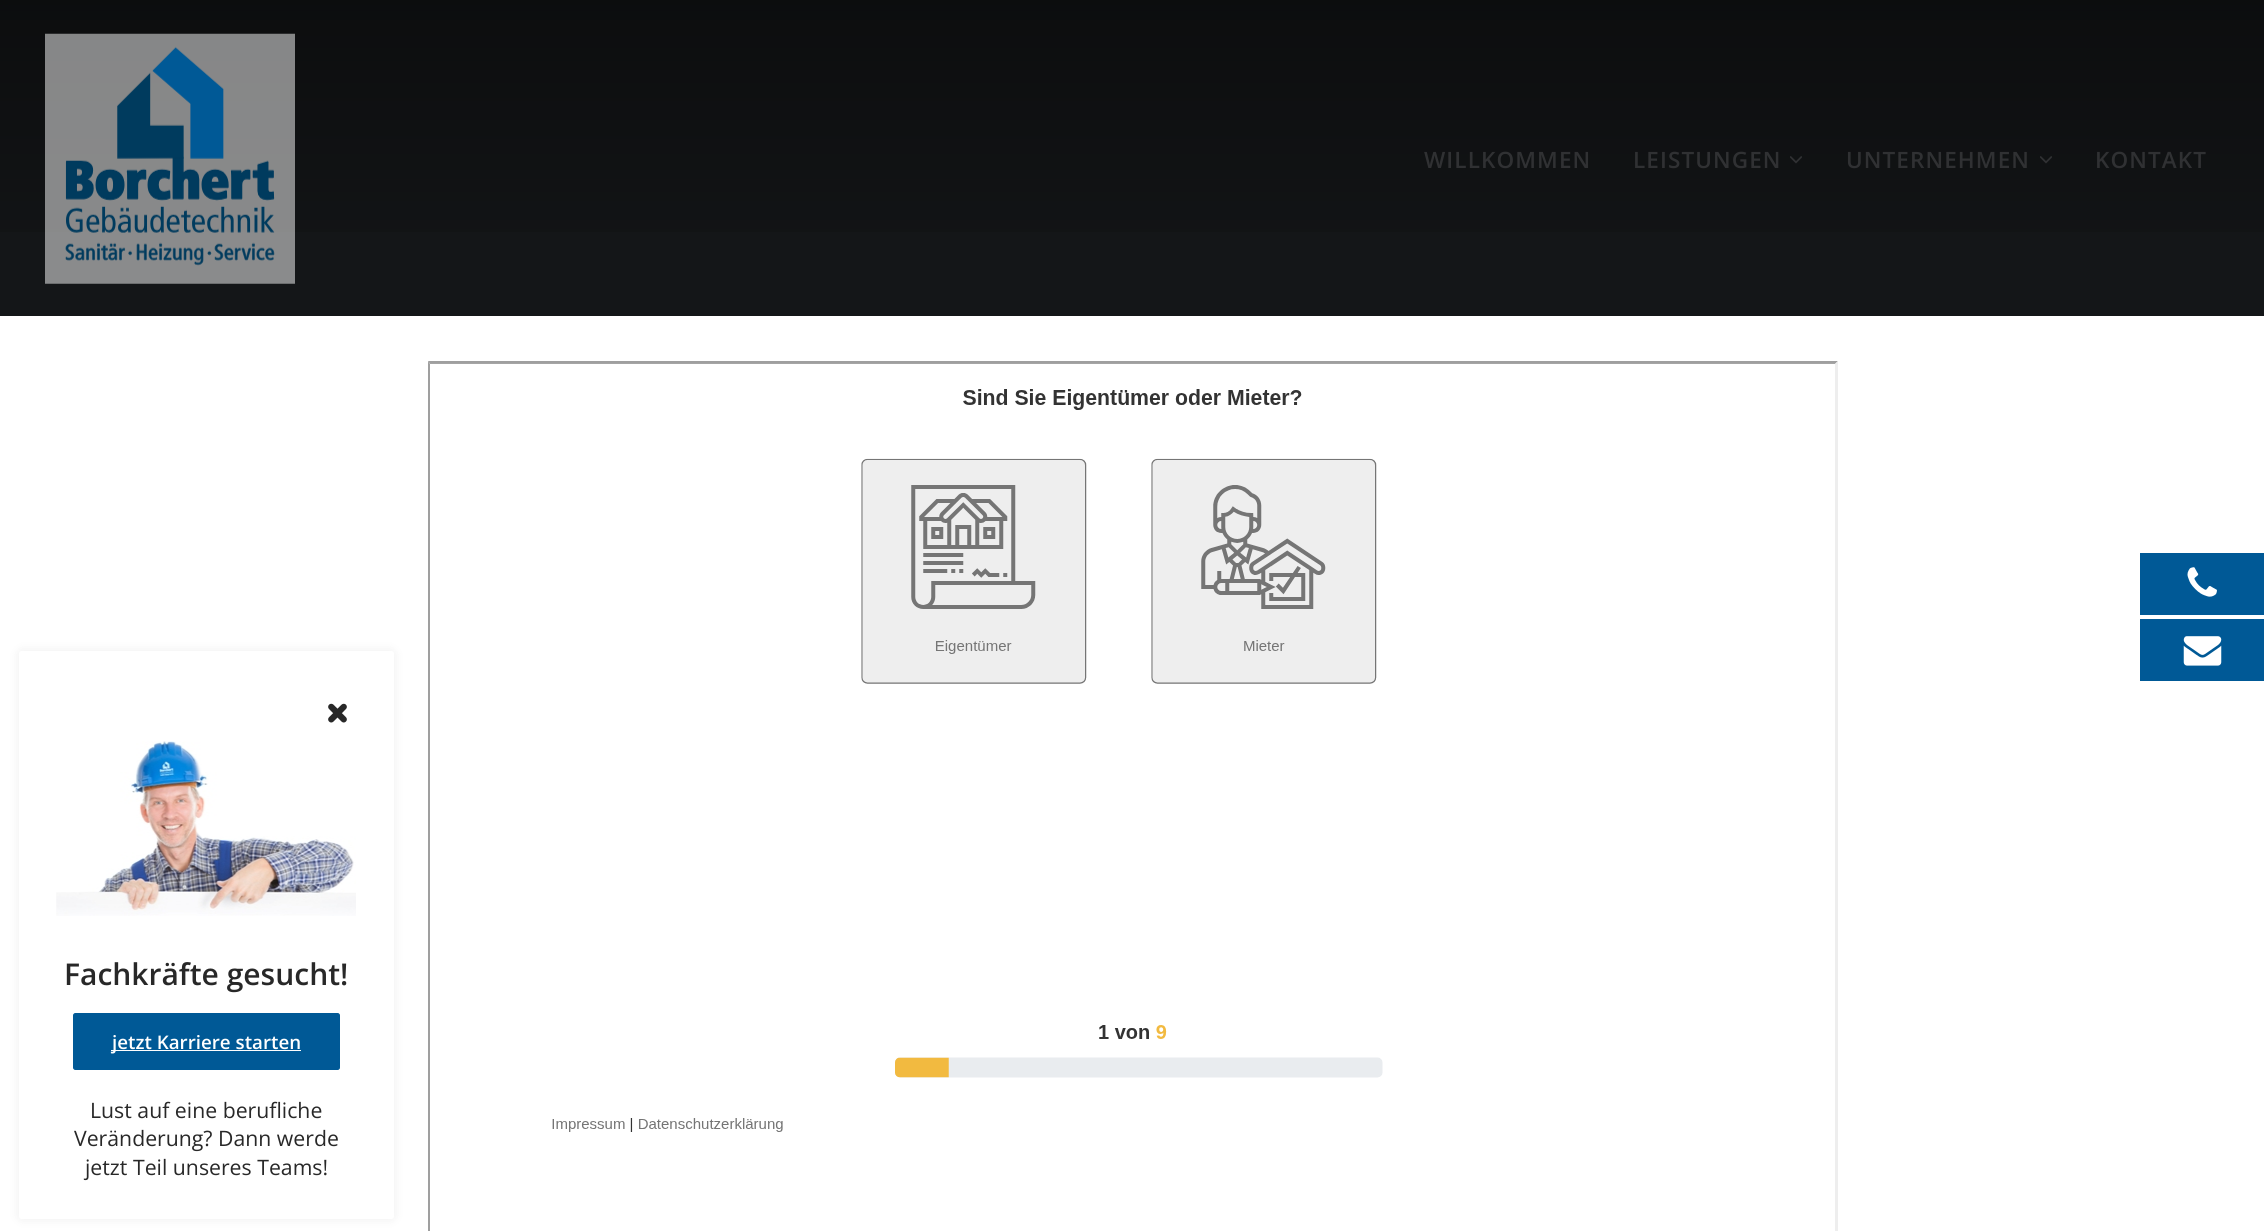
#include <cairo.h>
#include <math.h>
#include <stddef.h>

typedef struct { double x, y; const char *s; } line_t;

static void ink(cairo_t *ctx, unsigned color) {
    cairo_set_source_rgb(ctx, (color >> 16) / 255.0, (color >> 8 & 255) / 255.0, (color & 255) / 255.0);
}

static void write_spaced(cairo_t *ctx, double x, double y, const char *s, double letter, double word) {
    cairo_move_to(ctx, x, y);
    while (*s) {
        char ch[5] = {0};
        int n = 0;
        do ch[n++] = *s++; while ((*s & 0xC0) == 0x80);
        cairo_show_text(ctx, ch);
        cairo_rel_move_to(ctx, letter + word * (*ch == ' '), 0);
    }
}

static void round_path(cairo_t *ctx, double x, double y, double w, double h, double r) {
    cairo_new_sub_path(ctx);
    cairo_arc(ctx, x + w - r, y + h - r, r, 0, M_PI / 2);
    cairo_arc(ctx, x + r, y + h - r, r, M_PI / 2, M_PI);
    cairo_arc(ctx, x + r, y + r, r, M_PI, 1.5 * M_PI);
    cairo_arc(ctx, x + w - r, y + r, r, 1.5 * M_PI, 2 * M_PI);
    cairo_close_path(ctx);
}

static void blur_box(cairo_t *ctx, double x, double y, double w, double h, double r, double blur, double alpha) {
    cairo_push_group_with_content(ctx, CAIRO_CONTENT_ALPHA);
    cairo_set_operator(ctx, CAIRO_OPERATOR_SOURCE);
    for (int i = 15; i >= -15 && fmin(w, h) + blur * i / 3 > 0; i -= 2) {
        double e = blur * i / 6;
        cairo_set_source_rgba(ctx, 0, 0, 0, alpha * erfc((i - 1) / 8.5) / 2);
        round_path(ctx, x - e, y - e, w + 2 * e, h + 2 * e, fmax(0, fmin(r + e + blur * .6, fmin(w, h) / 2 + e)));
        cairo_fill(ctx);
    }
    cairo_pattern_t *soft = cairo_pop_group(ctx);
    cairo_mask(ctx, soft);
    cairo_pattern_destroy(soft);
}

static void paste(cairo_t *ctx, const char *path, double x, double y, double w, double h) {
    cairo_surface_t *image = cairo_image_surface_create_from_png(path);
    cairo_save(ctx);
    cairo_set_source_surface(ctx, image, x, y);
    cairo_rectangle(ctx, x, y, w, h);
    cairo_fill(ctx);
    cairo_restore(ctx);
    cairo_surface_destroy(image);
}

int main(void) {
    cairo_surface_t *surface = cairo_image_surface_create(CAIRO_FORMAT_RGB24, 2264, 1231);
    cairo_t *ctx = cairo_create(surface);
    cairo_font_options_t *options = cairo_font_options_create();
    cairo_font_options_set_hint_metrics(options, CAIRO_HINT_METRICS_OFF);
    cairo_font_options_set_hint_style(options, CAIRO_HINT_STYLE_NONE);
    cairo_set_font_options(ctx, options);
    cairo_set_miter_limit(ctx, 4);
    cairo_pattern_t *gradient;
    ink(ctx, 0x141618);
    cairo_paint(ctx);
    gradient = cairo_pattern_create_linear(1133, 0, 1133, 318);
    cairo_pattern_add_color_stop_rgba(gradient, 0, 0, 0, 0, 0.4);
    cairo_pattern_add_color_stop_rgba(gradient, 1, 0, 0, 0, 0);
    cairo_set_source(ctx, gradient);
    cairo_pattern_destroy(gradient);
    cairo_rectangle(ctx, 0, 0, 2264, 232);
    cairo_fill(ctx);
    paste(ctx, "media/1.png", 45, 33, 250, 251);
    cairo_select_font_face(ctx, "Open Sans SemiBold", CAIRO_FONT_SLANT_NORMAL, CAIRO_FONT_WEIGHT_NORMAL);
    cairo_set_font_size(ctx, 22.5);
    ink(ctx, 0x303133);
    write_spaced(ctx, 1424, 168, "WILLKOMMEN", 1.1, 0);
    write_spaced(ctx, 1633, 168, "LEISTUNGEN", 1.1, 0);
    paste(ctx, "media/2.png", 1790, 156, 12, 8);
    write_spaced(ctx, 1846, 168, "UNTERNEHMEN", 1.1, 0);
    paste(ctx, "media/2.png", 2040, 156, 12, 8);
    write_spaced(ctx, 2095, 168, "KONTAKT", 1.1, 0);
    ink(ctx, 0xFFFFFF);
    cairo_rectangle(ctx, 0, 316, 2264, 915);
    cairo_fill(ctx);
    ink(ctx, 0x9F9F9F);
    cairo_new_path(ctx);
    cairo_move_to(ctx, 428, 361);
    cairo_line_to(ctx, 1838, 361);
    cairo_line_to(ctx, 1835, 364);
    cairo_line_to(ctx, 430, 364);
    cairo_close_path(ctx);
    cairo_fill(ctx);
    cairo_new_path(ctx);
    cairo_move_to(ctx, 428, 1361);
    cairo_line_to(ctx, 428, 361);
    cairo_line_to(ctx, 430, 364);
    cairo_line_to(ctx, 430, 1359);
    cairo_close_path(ctx);
    cairo_fill(ctx);
    paste(ctx, "media/3.png", 430, 363, 1405, 769);
    ink(ctx, 0xEEEEEE);
    cairo_new_path(ctx);
    cairo_move_to(ctx, 1838, 361);
    cairo_line_to(ctx, 1838, 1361);
    cairo_line_to(ctx, 1835, 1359);
    cairo_line_to(ctx, 1835, 364);
    cairo_close_path(ctx);
    cairo_fill(ctx);
    ink(ctx, 0x005996);
    cairo_rectangle(ctx, 2140, 553, 124, 62);
    cairo_fill(ctx);
    paste(ctx, "media/4.png", 2187, 567, 30, 30);
    cairo_rectangle(ctx, 2140, 619, 124, 62);
    cairo_fill(ctx);
    paste(ctx, "media/5.png", 2183, 636, 39, 30);
    ink(ctx, 0x000000);
    blur_box(ctx, 19, 651, 375, 568, 2.5, 6, 0.07);
    ink(ctx, 0xFFFFFF);
    round_path(ctx, 19, 651, 375, 568, 2.5);
    cairo_fill(ctx);
    paste(ctx, "media/6.png", 328, 703, 19, 20);
    paste(ctx, "media/7.png", 56, 741, 300, 175);
    cairo_set_font_size(ctx, 30);
    ink(ctx, 0x282828);
    cairo_move_to(ctx, 64, 985);
    cairo_show_text(ctx, "Fachkräfte gesucht!");
    ink(ctx, 0x005996);
    round_path(ctx, 73.5, 1013.5, 266, 56, 2);
    cairo_fill_preserve(ctx);
    cairo_set_line_width(ctx, 1);
    cairo_stroke(ctx);
    ink(ctx, 0xFFFFFF);
    cairo_rectangle(ctx, 111, 1050, 190, 1);
    cairo_fill(ctx);
    cairo_set_font_size(ctx, 18.75);
    cairo_move_to(ctx, 112, 1049);
    cairo_show_text(ctx, "jetzt Karriere starten");
    cairo_select_font_face(ctx, "Open Sans", CAIRO_FONT_SLANT_NORMAL, CAIRO_FONT_WEIGHT_NORMAL);
    cairo_set_font_size(ctx, 21.25);
    ink(ctx, 0x282828);
    {
        static const line_t items[] = {
            {90, 1118, "Lust auf eine berufliche"},
            {74, 1146, "Veränderung? Dann werde"},
            {85, 1175, "jetzt Teil unseres Teams!"},
        };
        for (size_t i = 0; i < sizeof items / sizeof *items; i++) {
            cairo_move_to(ctx, items[i].x, items[i].y);
            cairo_show_text(ctx, items[i].s);
        }
    }
    cairo_surface_write_to_png(surface, "image.png");
    cairo_font_options_destroy(options);
    cairo_destroy(ctx);
    cairo_surface_destroy(surface);
    return 0;
}
